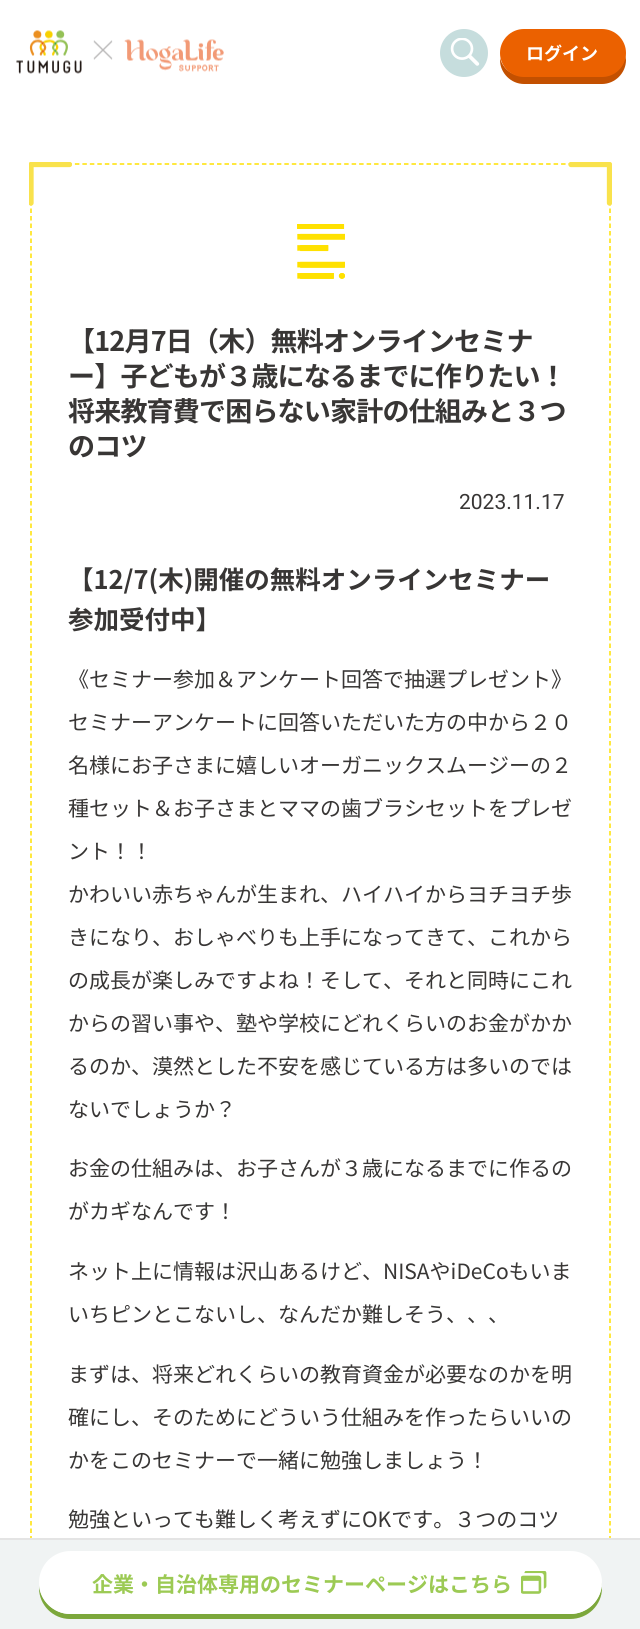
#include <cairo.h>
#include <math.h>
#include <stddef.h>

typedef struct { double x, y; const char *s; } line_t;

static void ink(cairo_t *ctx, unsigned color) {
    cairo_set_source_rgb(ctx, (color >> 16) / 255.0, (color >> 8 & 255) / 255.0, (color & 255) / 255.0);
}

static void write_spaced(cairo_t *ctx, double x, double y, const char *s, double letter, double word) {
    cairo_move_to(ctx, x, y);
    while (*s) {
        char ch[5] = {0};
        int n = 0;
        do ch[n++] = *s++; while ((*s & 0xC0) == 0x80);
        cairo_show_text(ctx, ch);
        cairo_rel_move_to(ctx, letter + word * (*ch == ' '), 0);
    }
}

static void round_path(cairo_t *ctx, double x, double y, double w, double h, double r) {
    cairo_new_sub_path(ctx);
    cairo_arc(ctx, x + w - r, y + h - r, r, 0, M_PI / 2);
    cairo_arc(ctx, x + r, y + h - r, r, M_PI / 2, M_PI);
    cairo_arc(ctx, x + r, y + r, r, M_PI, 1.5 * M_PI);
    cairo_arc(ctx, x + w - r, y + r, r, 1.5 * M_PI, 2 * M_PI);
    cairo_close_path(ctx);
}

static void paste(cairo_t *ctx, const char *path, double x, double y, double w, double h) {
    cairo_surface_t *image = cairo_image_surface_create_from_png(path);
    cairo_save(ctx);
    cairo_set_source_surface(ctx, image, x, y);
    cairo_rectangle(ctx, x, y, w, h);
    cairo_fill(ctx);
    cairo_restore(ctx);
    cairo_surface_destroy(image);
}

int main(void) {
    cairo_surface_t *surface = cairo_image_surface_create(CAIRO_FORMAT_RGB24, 640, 1629);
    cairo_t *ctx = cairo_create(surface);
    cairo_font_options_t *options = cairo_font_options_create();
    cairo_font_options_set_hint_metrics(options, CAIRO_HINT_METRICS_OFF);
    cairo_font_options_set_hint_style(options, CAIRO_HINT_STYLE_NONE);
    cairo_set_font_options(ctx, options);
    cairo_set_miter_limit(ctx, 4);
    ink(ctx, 0xFFFFFF);
    cairo_paint(ctx);
    paste(ctx, "media/1.png", 16, 30, 208, 44);
    ink(ctx, 0xC6DDDD);
    cairo_arc(ctx, 464, 53, 24, 0, 2 * M_PI);
    cairo_fill(ctx);
    paste(ctx, "media/2.png", 450, 38, 30, 28);
    ink(ctx, 0xC35000);
    cairo_new_path(ctx);
    cairo_move_to(ctx, 500, 58);
    cairo_line_to(ctx, 500, 60);
    cairo_curve_to(ctx, 500, 73, 511, 84, 524, 84);
    cairo_line_to(ctx, 602, 84);
    cairo_curve_to(ctx, 615, 84, 626, 73, 626, 60);
    cairo_line_to(ctx, 625, 55);
    cairo_curve_to(ctx, 624, 67, 614, 76, 602, 76);
    cairo_line_to(ctx, 524, 76);
    cairo_curve_to(ctx, 512, 76, 503, 69, 500, 58);
    cairo_close_path(ctx);
    cairo_fill(ctx);
    ink(ctx, 0xEB6100);
    round_path(ctx, 500, 29, 126, 48, 24);
    cairo_fill(ctx);
    cairo_select_font_face(ctx, "Noto Sans JP", CAIRO_FONT_SLANT_NORMAL, CAIRO_FONT_WEIGHT_BOLD);
    cairo_set_font_size(ctx, 18);
    ink(ctx, 0xFFFFFF);
    cairo_move_to(ctx, 526, 60);
    cairo_show_text(ctx, "ログイン");
    cairo_new_path(ctx);
    cairo_move_to(ctx, 30, 164);
    cairo_line_to(ctx, 610.5, 164);
    ink(ctx, 0xFFE100);
    cairo_set_line_width(ctx, 1.5);
    cairo_set_dash(ctx, (double[]){4.5, 2.98}, 2, 0);
    cairo_stroke(ctx);
    cairo_new_path(ctx);
    cairo_move_to(ctx, 610, 163.5);
    cairo_line_to(ctx, 610, 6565.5);
    cairo_set_dash(ctx, (double[]){4.5, 3}, 2, 0);
    cairo_stroke(ctx);
    cairo_new_path(ctx);
    cairo_move_to(ctx, 31, 163.5);
    cairo_line_to(ctx, 31, 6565.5);
    cairo_stroke(ctx);
    cairo_save(ctx);
    cairo_rectangle(ctx, 29, 162, 43, 44);
    cairo_clip(ctx);
    cairo_new_path(ctx);
    cairo_move_to(ctx, 69.5, 164.5);
    cairo_line_to(ctx, 31, 164.5);
    cairo_line_to(ctx, 31, 203);
    ink(ctx, 0xF9E24C);
    cairo_set_line_width(ctx, 5.3);
    cairo_set_line_cap(ctx, CAIRO_LINE_CAP_ROUND);
    cairo_set_line_join(ctx, CAIRO_LINE_JOIN_ROUND);
    cairo_set_dash(ctx, NULL, 0, 0);
    cairo_stroke(ctx);
    cairo_restore(ctx);
    cairo_save(ctx);
    cairo_new_path(ctx);
    cairo_move_to(ctx, 612, 162);
    cairo_line_to(ctx, 612, 205.5);
    cairo_line_to(ctx, 568.5, 205.5);
    cairo_line_to(ctx, 568.5, 162);
    cairo_close_path(ctx);
    cairo_clip(ctx);
    cairo_new_path(ctx);
    cairo_move_to(ctx, 612, 162);
    cairo_line_to(ctx, 612, 205.5);
    cairo_line_to(ctx, 568.5, 205.5);
    cairo_line_to(ctx, 568.5, 162);
    cairo_close_path(ctx);
    cairo_clip(ctx);
    cairo_new_path(ctx);
    cairo_move_to(ctx, 609.5, 203);
    cairo_line_to(ctx, 609.5, 164.5);
    cairo_line_to(ctx, 571, 164.5);
    ink(ctx, 0xF9E24C);
    cairo_set_line_width(ctx, 5.3);
    cairo_set_line_cap(ctx, CAIRO_LINE_CAP_ROUND);
    cairo_set_line_join(ctx, CAIRO_LINE_JOIN_ROUND);
    cairo_set_dash(ctx, NULL, 0, 0);
    cairo_stroke(ctx);
    cairo_restore(ctx);
    paste(ctx, "media/3.png", 297, 224, 48, 55);
    cairo_set_font_size(ctx, 27);
    ink(ctx, 0x383635);
    {
        static const line_t items[] = {
            {68, 351, "【12月7日（木）無料オンラインセミナ"},
            {68, 386, "ー】子どもが３歳になるまでに作りたい！"},
            {68, 421, "将来教育費で困らない家計の仕組みと３つ"},
            {68, 456, "のコツ"},
        };
        for (size_t i = 0; i < sizeof items / sizeof *items; i++) {
            write_spaced(ctx, items[i].x, items[i].y, items[i].s, -0.8, 0);
        }
    }
    cairo_select_font_face(ctx, "Roboto", CAIRO_FONT_SLANT_NORMAL, CAIRO_FONT_WEIGHT_NORMAL);
    cairo_set_font_size(ctx, 21);
    cairo_move_to(ctx, 459, 509);
    cairo_show_text(ctx, "2023.11.17");
    cairo_select_font_face(ctx, "Noto Sans JP", CAIRO_FONT_SLANT_NORMAL, CAIRO_FONT_WEIGHT_BOLD);
    cairo_set_font_size(ctx, 25.5);
    cairo_move_to(ctx, 68, 589);
    cairo_show_text(ctx, "【12/7(木)開催の無料オンラインセミナー");
    cairo_move_to(ctx, 68, 629);
    cairo_show_text(ctx, "参加受付中】");
    cairo_select_font_face(ctx, "Noto Sans JP", CAIRO_FONT_SLANT_NORMAL, CAIRO_FONT_WEIGHT_NORMAL);
    cairo_set_font_size(ctx, 21);
    {
        static const line_t items[] = {
            {68, 687, "《セミナー参加＆アンケート回答で抽選プレゼント》"},
            {68, 730, "セミナーアンケートに回答いただいた方の中から２０"},
            {68, 773, "名様にお子さまに嬉しいオーガニックスムージーの２"},
            {68, 816, "種セット＆お子さまとママの歯ブラシセットをプレゼ"},
            {68, 859, "ント！！"},
            {68, 902, "かわいい赤ちゃんが生まれ、ハイハイからヨチヨチ歩"},
            {68, 945, "きになり、おしゃべりも上手になってきて、これから"},
            {68, 988, "の成長が楽しみですよね！そして、それと同時にこれ"},
            {68, 1031, "からの習い事や、塾や学校にどれくらいのお金がかか"},
            {68, 1074, "るのか、漠然とした不安を感じている方は多いのでは"},
            {68, 1117, "ないでしょうか？"},
            {68, 1176, "お金の仕組みは、お子さんが３歳になるまでに作るの"},
            {68, 1219, "がカギなんです！"},
            {68, 1279, "ネット上に情報は沢山あるけど、NISAやiDeCoもいま"},
            {68, 1322, "いちピンとこないし、なんだか難しそう、、、"},
            {68, 1382, "まずは、将来どれくらいの教育資金が必要なのかを明"},
            {68, 1425, "確にし、そのためにどういう仕組みを作ったらいいの"},
            {68, 1468, "かをこのセミナーで一緒に勉強しましょう！"},
            {68, 1527, "勉強といっても難しく考えずにOKです。３つのコツ"},
        };
        for (size_t i = 0; i < sizeof items / sizeof *items; i++) {
            cairo_move_to(ctx, items[i].x, items[i].y);
            cairo_show_text(ctx, items[i].s);
        }
    }
    ink(ctx, 0xF0F3F3);
    cairo_rectangle(ctx, 0, 1540, 640, 89);
    cairo_fill(ctx);
    ink(ctx, 0xE4E4E4);
    cairo_rectangle(ctx, 0, 1538, 640, 2);
    cairo_fill(ctx);
    ink(ctx, 0x7CA73B);
    cairo_new_path(ctx);
    cairo_move_to(ctx, 39, 1585);
    cairo_line_to(ctx, 39, 1588);
    cairo_curve_to(ctx, 39, 1605, 53, 1619, 70, 1619);
    cairo_line_to(ctx, 570, 1619);
    cairo_curve_to(ctx, 588, 1619, 602, 1605, 602, 1588);
    cairo_line_to(ctx, 601, 1582);
    cairo_line_to(ctx, 602, 1582);
    cairo_curve_to(ctx, 602, 1600, 587, 1614, 570, 1614);
    cairo_line_to(ctx, 70, 1614);
    cairo_curve_to(ctx, 54, 1614, 40, 1601, 39, 1585);
    cairo_close_path(ctx);
    cairo_fill(ctx);
    ink(ctx, 0xFFFFFF);
    round_path(ctx, 39, 1551, 563, 63, 31.5);
    cairo_fill(ctx);
    cairo_select_font_face(ctx, "Noto Sans JP", CAIRO_FONT_SLANT_NORMAL, CAIRO_FONT_WEIGHT_BOLD);
    ink(ctx, 0x9CCA54);
    cairo_move_to(ctx, 92, 1592);
    cairo_show_text(ctx, "企業・自治体専用のセミナーページはこちら");
    paste(ctx, "media/4.png", 521, 1571, 26, 23);
    cairo_surface_write_to_png(surface, "image.png");
    cairo_font_options_destroy(options);
    cairo_destroy(ctx);
    cairo_surface_destroy(surface);
    return 0;
}
